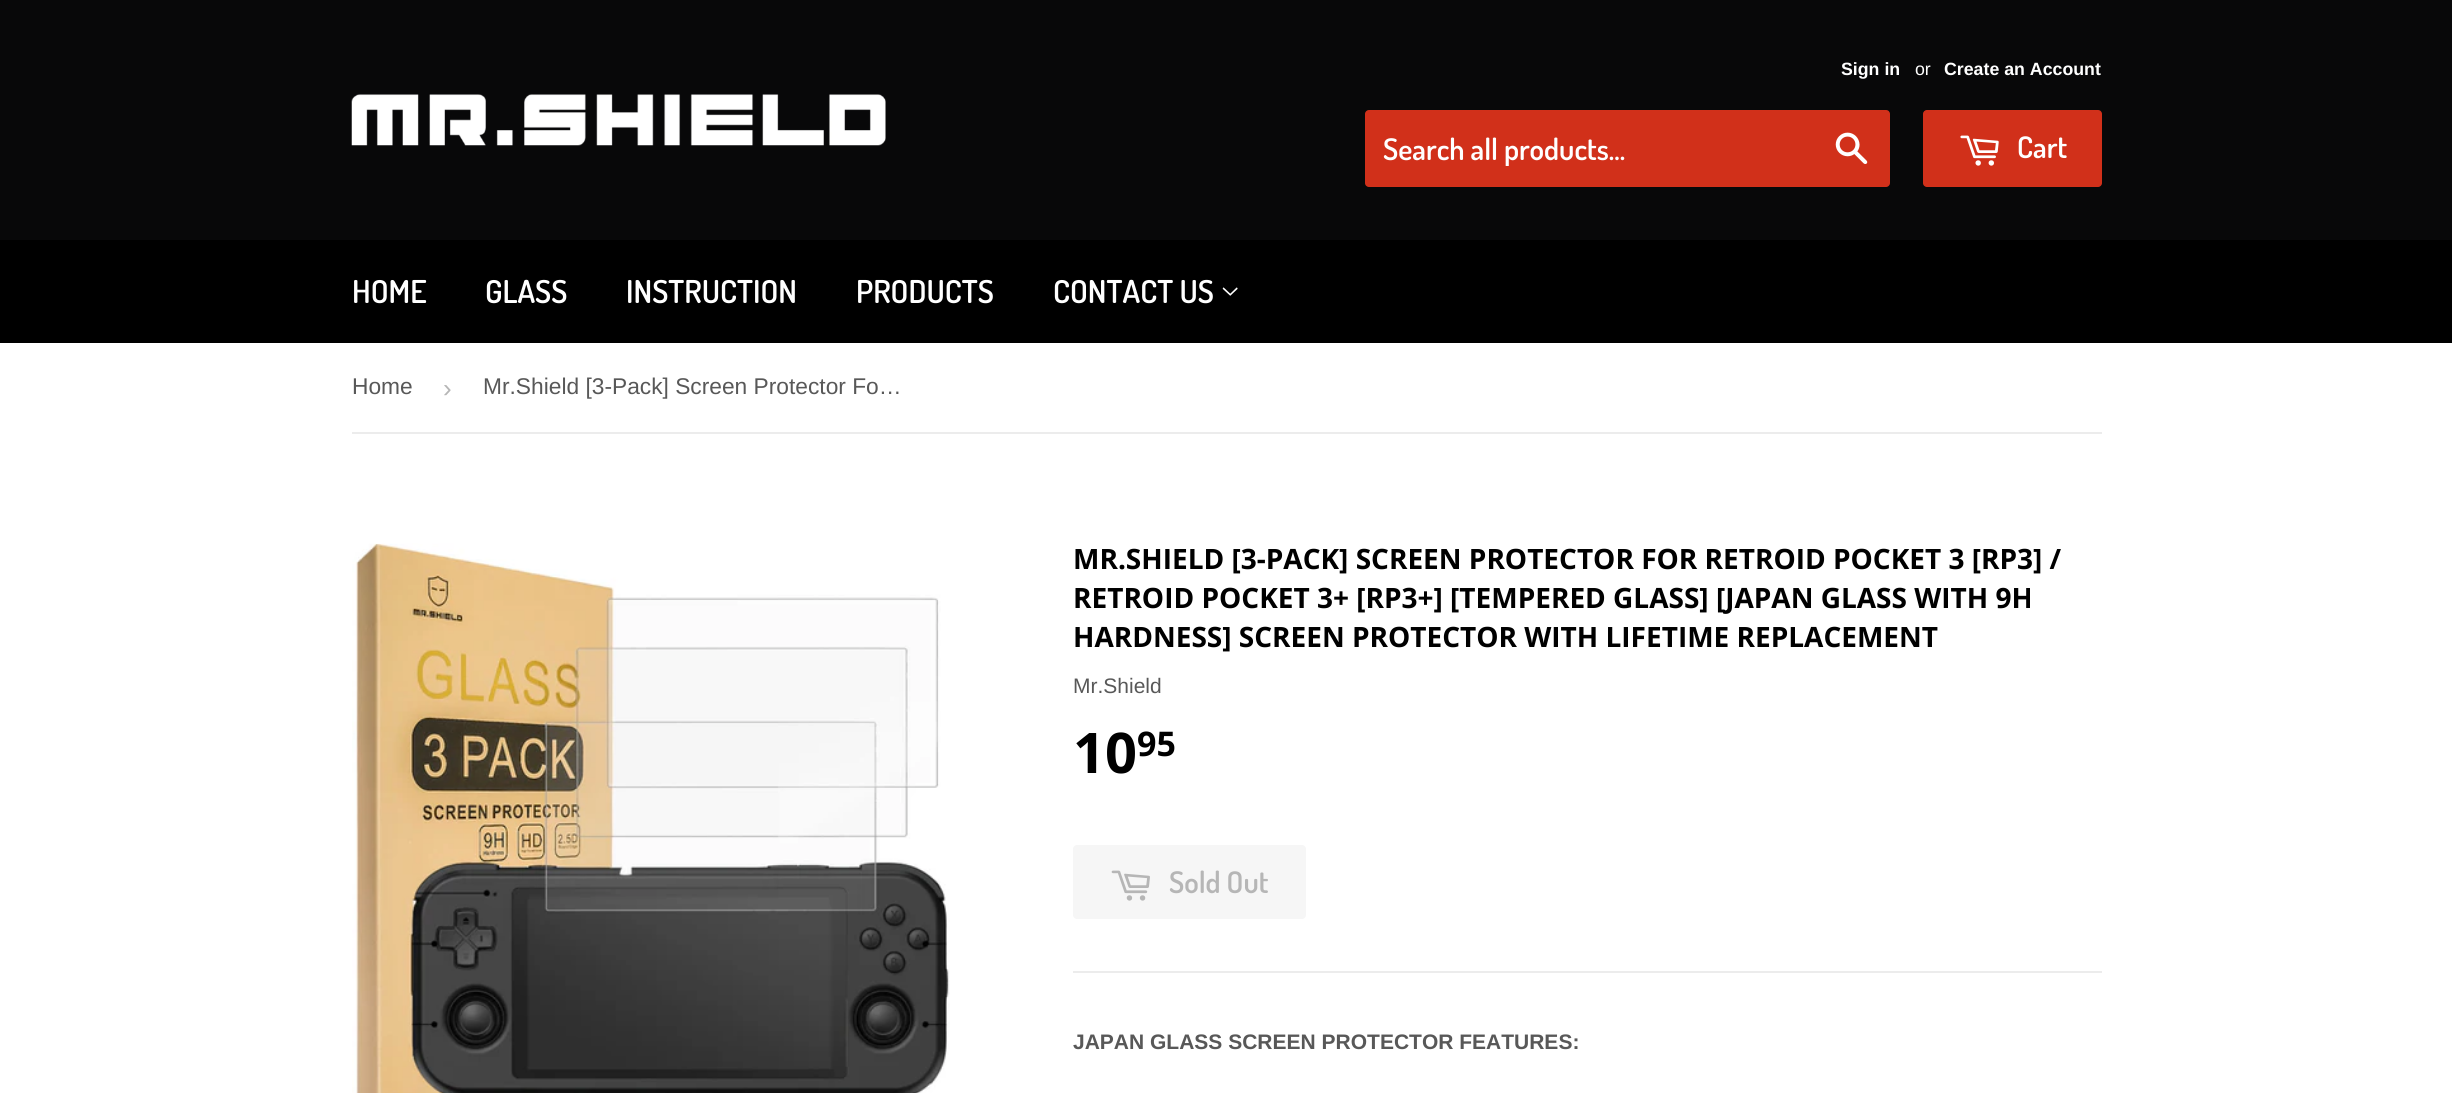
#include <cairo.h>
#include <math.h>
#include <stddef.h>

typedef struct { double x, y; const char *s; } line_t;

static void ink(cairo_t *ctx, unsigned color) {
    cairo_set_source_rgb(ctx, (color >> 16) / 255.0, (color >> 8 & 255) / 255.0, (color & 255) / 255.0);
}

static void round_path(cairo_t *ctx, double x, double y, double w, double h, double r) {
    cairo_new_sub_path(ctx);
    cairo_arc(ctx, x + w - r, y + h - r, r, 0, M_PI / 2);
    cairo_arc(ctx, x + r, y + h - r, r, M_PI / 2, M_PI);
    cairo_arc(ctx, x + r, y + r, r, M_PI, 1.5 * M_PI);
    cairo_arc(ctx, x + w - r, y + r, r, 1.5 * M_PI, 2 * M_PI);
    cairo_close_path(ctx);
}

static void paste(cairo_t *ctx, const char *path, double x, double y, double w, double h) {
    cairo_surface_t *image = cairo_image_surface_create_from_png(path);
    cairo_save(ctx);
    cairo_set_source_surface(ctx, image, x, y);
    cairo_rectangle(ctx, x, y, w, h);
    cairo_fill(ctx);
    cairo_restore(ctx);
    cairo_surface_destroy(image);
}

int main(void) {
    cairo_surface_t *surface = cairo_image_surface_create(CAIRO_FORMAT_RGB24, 2452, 1093);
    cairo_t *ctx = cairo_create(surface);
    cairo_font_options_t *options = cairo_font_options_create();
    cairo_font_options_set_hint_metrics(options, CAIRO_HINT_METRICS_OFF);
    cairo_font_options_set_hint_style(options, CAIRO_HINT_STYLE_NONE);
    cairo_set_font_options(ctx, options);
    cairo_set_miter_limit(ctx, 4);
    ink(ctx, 0xFFFFFF);
    cairo_paint(ctx);
    ink(ctx, 0x080809);
    cairo_rectangle(ctx, 0, 0, 2452, 240);
    cairo_fill(ctx);
    paste(ctx, "media/1.png", 351, 94, 535, 52);
    cairo_select_font_face(ctx, "Liberation Sans", CAIRO_FONT_SLANT_NORMAL, CAIRO_FONT_WEIGHT_BOLD);
    cairo_set_font_size(ctx, 17.75);
    ink(ctx, 0xFFFFFF);
    cairo_move_to(ctx, 1841, 75);
    cairo_show_text(ctx, "Sign in");
    cairo_select_font_face(ctx, "Liberation Sans", CAIRO_FONT_SLANT_NORMAL, CAIRO_FONT_WEIGHT_NORMAL);
    cairo_move_to(ctx, 1915, 75);
    cairo_show_text(ctx, "or");
    cairo_select_font_face(ctx, "Liberation Sans", CAIRO_FONT_SLANT_NORMAL, CAIRO_FONT_WEIGHT_BOLD);
    cairo_move_to(ctx, 1944, 75);
    cairo_show_text(ctx, "Create an Account");
    ink(ctx, 0xD1301A);
    round_path(ctx, 1365, 110, 525, 77, 4);
    cairo_fill(ctx);
    cairo_save(ctx);
    cairo_rectangle(ctx, 1383, 130, 421, 36);
    cairo_clip(ctx);
    cairo_select_font_face(ctx, "Dosis SemiBold", CAIRO_FONT_SLANT_NORMAL, CAIRO_FONT_WEIGHT_NORMAL);
    cairo_set_font_size(ctx, 29.75);
    ink(ctx, 0xFFFFFF);
    cairo_move_to(ctx, 1383, 160);
    cairo_show_text(ctx, "Search all products...");
    cairo_restore(ctx);
    paste(ctx, "media/2.png", 1835, 132, 33, 32);
    round_path(ctx, 1923, 110, 179, 77, 4);
    cairo_fill(ctx);
    paste(ctx, "media/3.png", 1960, 135, 39, 31);
    cairo_select_font_face(ctx, "Dosis SemiBold", CAIRO_FONT_SLANT_NORMAL, CAIRO_FONT_WEIGHT_NORMAL);
    cairo_set_font_size(ctx, 29.75);
    ink(ctx, 0xFFFFFF);
    cairo_move_to(ctx, 2017, 158);
    cairo_show_text(ctx, "Cart");
    ink(ctx, 0x000000);
    cairo_rectangle(ctx, 0, 240, 2452, 103);
    cairo_fill(ctx);
    cairo_set_font_size(ctx, 31.5);
    ink(ctx, 0xFFFFFF);
    {
        static const line_t items[] = {
            {352, 303, "HOME"},
            {485, 303, "GLASS"},
            {626, 303, "INSTRUCTION"},
            {856, 303, "PRODUCTS"},
            {1053, 303, "CONTACT US"},
        };
        for (size_t i = 0; i < sizeof items / sizeof *items; i++) {
            cairo_move_to(ctx, items[i].x, items[i].y);
            cairo_show_text(ctx, items[i].s);
        }
    }
    paste(ctx, "media/4.png", 1222, 287, 16, 9);
    ink(ctx, 0xECECEC);
    cairo_rectangle(ctx, 352, 432, 1750, 2);
    cairo_fill(ctx);
    cairo_select_font_face(ctx, "Liberation Sans", CAIRO_FONT_SLANT_NORMAL, CAIRO_FONT_WEIGHT_NORMAL);
    cairo_set_font_size(ctx, 22.75);
    ink(ctx, 0x585858);
    cairo_move_to(ctx, 352, 394);
    cairo_show_text(ctx, "Home");
    cairo_set_font_size(ctx, 26);
    ink(ctx, 0xB6B6B6);
    cairo_move_to(ctx, 443, 397);
    cairo_show_text(ctx, "›");
    cairo_set_font_size(ctx, 22.75);
    ink(ctx, 0x585858);
    cairo_move_to(ctx, 483, 394);
    cairo_show_text(ctx, "Mr.Shield [3-Pack] Screen Protector Fo…");
    paste(ctx, "media/5.png", 352, 543, 598, 550);
    cairo_select_font_face(ctx, "Open Sans", CAIRO_FONT_SLANT_NORMAL, CAIRO_FONT_WEIGHT_BOLD);
    cairo_set_font_size(ctx, 28);
    ink(ctx, 0x000000);
    {
        static const line_t items[] = {
            {1073, 569, "MR.SHIELD [3-PACK] SCREEN PROTECTOR FOR RETROID POCKET 3 [RP3] /"},
            {1073, 608, "RETROID POCKET 3+ [RP3+] [TEMPERED GLASS] [JAPAN GLASS WITH 9H"},
            {1073, 647, "HARDNESS] SCREEN PROTECTOR WITH LIFETIME REPLACEMENT"},
        };
        for (size_t i = 0; i < sizeof items / sizeof *items; i++) {
            cairo_move_to(ctx, items[i].x, items[i].y);
            cairo_show_text(ctx, items[i].s);
        }
    }
    cairo_select_font_face(ctx, "Liberation Sans", CAIRO_FONT_SLANT_NORMAL, CAIRO_FONT_WEIGHT_NORMAL);
    cairo_set_font_size(ctx, 21);
    ink(ctx, 0x585858);
    cairo_move_to(ctx, 1073, 693);
    cairo_show_text(ctx, "Mr.Shield");
    cairo_select_font_face(ctx, "Open Sans", CAIRO_FONT_SLANT_NORMAL, CAIRO_FONT_WEIGHT_BOLD);
    cairo_set_font_size(ctx, 56);
    ink(ctx, 0x000000);
    cairo_move_to(ctx, 1073, 773);
    cairo_show_text(ctx, "10");
    cairo_set_font_size(ctx, 34);
    cairo_move_to(ctx, 1137, 756);
    cairo_show_text(ctx, "95");
    ink(ctx, 0xF6F6F6);
    round_path(ctx, 1073, 845, 233, 74, 4);
    cairo_fill(ctx);
    paste(ctx, "media/6.png", 1111, 870, 39, 31);
    cairo_select_font_face(ctx, "Dosis SemiBold", CAIRO_FONT_SLANT_NORMAL, CAIRO_FONT_WEIGHT_NORMAL);
    cairo_set_font_size(ctx, 29.75);
    ink(ctx, 0xB6B6B6);
    cairo_move_to(ctx, 1169, 893);
    cairo_show_text(ctx, "Sold Out");
    ink(ctx, 0xECECEC);
    cairo_rectangle(ctx, 1073, 971, 1029, 2);
    cairo_fill(ctx);
    cairo_select_font_face(ctx, "Liberation Sans", CAIRO_FONT_SLANT_NORMAL, CAIRO_FONT_WEIGHT_BOLD);
    cairo_set_font_size(ctx, 21);
    ink(ctx, 0x585858);
    cairo_move_to(ctx, 1073, 1049);
    cairo_show_text(ctx, "JAPAN GLASS SCREEN PROTECTOR FEATURES:");
    cairo_surface_write_to_png(surface, "image.png");
    cairo_font_options_destroy(options);
    cairo_destroy(ctx);
    cairo_surface_destroy(surface);
    return 0;
}
